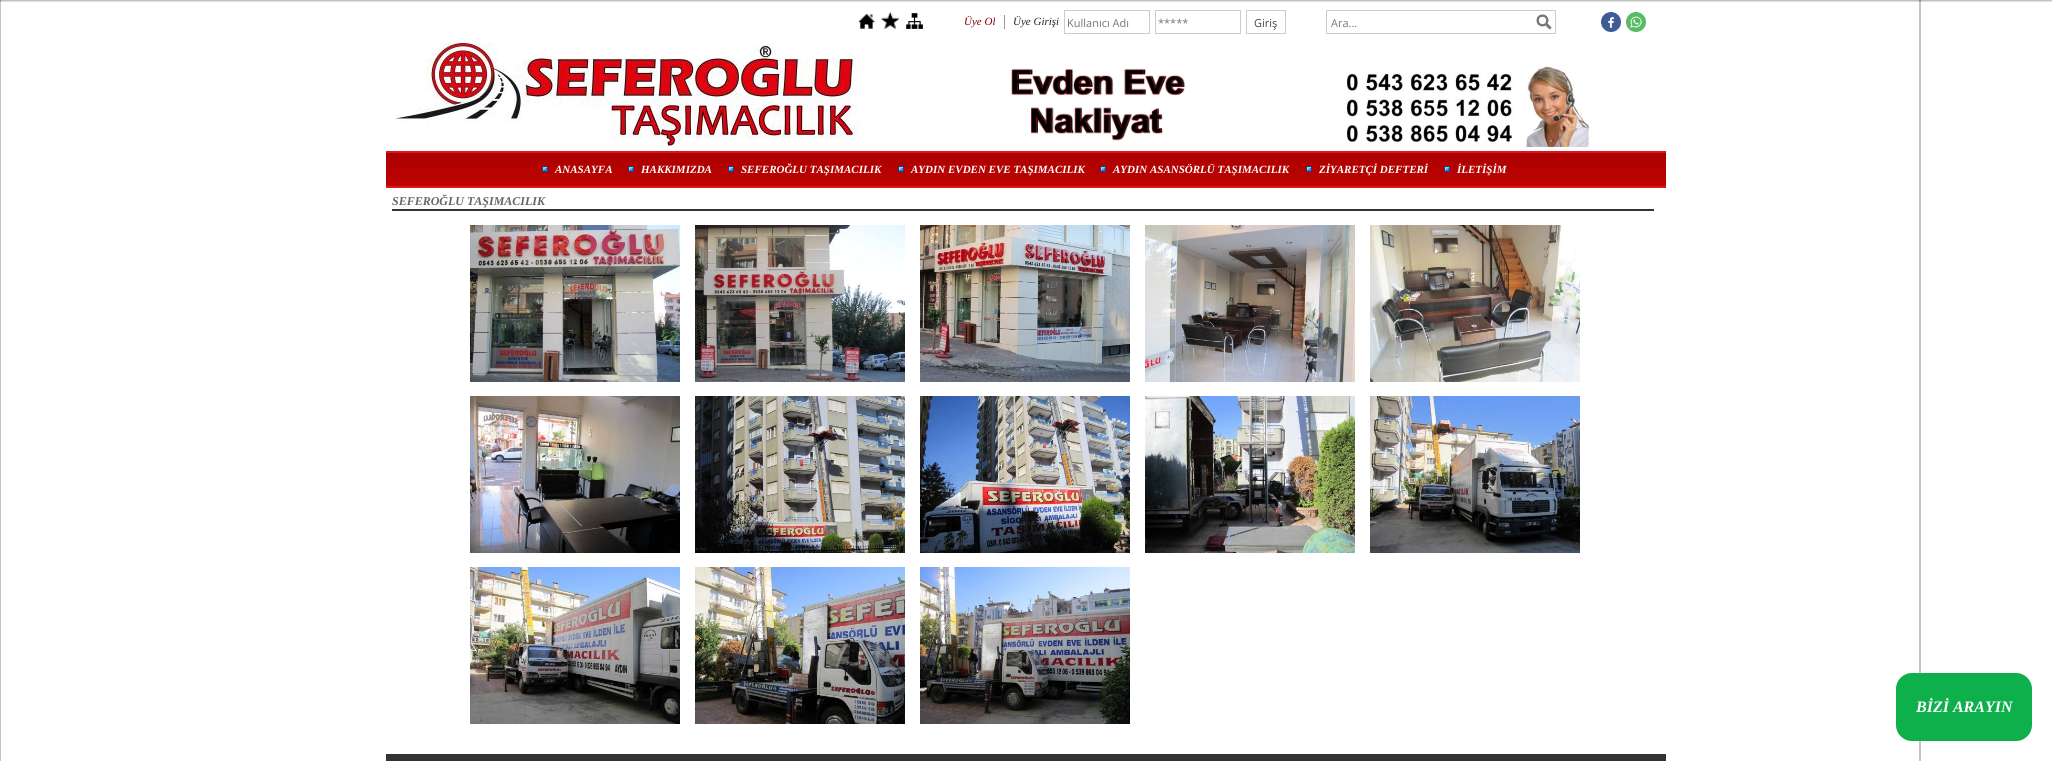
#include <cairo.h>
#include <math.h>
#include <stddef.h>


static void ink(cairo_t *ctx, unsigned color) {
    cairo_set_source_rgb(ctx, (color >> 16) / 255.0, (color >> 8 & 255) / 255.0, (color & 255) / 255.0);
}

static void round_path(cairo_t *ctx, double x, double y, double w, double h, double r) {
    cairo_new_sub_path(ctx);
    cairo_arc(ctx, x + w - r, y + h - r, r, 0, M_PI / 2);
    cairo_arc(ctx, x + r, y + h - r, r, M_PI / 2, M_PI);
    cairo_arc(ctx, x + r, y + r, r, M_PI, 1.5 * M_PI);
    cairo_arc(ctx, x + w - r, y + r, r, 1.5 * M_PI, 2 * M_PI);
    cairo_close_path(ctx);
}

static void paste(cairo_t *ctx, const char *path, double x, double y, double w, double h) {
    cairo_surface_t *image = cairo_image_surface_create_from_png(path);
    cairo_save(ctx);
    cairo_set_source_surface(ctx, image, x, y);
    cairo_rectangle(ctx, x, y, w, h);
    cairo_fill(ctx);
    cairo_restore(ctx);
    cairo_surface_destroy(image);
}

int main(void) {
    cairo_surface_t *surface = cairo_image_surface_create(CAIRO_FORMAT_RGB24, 2052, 761);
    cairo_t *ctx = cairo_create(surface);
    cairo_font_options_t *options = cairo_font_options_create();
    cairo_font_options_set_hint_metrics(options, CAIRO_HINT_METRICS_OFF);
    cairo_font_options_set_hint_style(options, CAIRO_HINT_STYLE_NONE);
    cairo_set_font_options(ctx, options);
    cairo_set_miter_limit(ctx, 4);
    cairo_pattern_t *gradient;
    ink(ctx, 0xFFFFFF);
    cairo_paint(ctx);
    paste(ctx, "media/1.png", 0, 0, 2052, 761);
    paste(ctx, "media/2.png", 858, 13, 17, 16);
    paste(ctx, "media/3.png", 881, 12, 19, 17);
    paste(ctx, "media/4.png", 906, 13, 17, 16);
    ink(ctx, 0x999999);
    cairo_rectangle(ctx, 1004, 15, 1, 14);
    cairo_fill(ctx);
    cairo_select_font_face(ctx, "Liberation Serif", CAIRO_FONT_SLANT_ITALIC, CAIRO_FONT_WEIGHT_NORMAL);
    cairo_set_font_size(ctx, 11);
    ink(ctx, 0x800000);
    cairo_move_to(ctx, 964, 25);
    cairo_show_text(ctx, "Üye Ol");
    ink(ctx, 0x222222);
    cairo_move_to(ctx, 1013, 25);
    cairo_show_text(ctx, "Üye Girişi");
    cairo_rectangle(ctx, 1064.5, 10.5, 85, 23);
    ink(ctx, 0xCCCCCC);
    cairo_set_line_width(ctx, 1);
    cairo_stroke(ctx);
    cairo_select_font_face(ctx, "Open Sans", CAIRO_FONT_SLANT_NORMAL, CAIRO_FONT_WEIGHT_NORMAL);
    ink(ctx, 0x757575);
    cairo_move_to(ctx, 1067, 27);
    cairo_show_text(ctx, "Kullanıcı Adı");
    cairo_rectangle(ctx, 1155.5, 10.5, 85, 23);
    ink(ctx, 0xCCCCCC);
    cairo_stroke(ctx);
    ink(ctx, 0x757575);
    cairo_move_to(ctx, 1158, 27);
    cairo_show_text(ctx, "*****");
    cairo_rectangle(ctx, 1246.5, 10.5, 39, 23);
    ink(ctx, 0xCCCCCC);
    cairo_stroke(ctx);
    ink(ctx, 0x444444);
    cairo_move_to(ctx, 1254, 27);
    cairo_show_text(ctx, "Giriş");
    cairo_rectangle(ctx, 1326.5, 10.5, 229, 23);
    ink(ctx, 0xCCCCCC);
    cairo_stroke(ctx);
    ink(ctx, 0x757575);
    cairo_move_to(ctx, 1331, 27);
    cairo_show_text(ctx, "Ara...");
    paste(ctx, "media/5.png", 1536, 14, 16, 16);
    paste(ctx, "media/6.png", 1601, 12, 20, 20);
    paste(ctx, "media/7.png", 1626, 12, 20, 20);
    paste(ctx, "media/8.png", 394, 43, 472, 104);
    paste(ctx, "media/9.png", 1011, 68, 174, 73);
    paste(ctx, "media/10.png", 1346, 65, 243, 82);
    gradient = cairo_pattern_create_linear(1026, 153, 1026, 186);
    cairo_pattern_add_color_stop_rgba(gradient, 0, 0.663, 0.004, 0, 1);
    cairo_pattern_add_color_stop_rgba(gradient, 1, 0.753, 0.012, 0.004, 1);
    cairo_set_source(ctx, gradient);
    cairo_pattern_destroy(gradient);
    cairo_rectangle(ctx, 386, 153, 1280, 33);
    cairo_fill(ctx);
    ink(ctx, 0xDF161C);
    cairo_rectangle(ctx, 386, 151, 1280, 2);
    cairo_fill(ctx);
    cairo_rectangle(ctx, 386, 186, 1280, 2);
    cairo_fill(ctx);
    paste(ctx, "media/11.png", 542, 166, 6, 6);
    cairo_select_font_face(ctx, "Liberation Serif", CAIRO_FONT_SLANT_ITALIC, CAIRO_FONT_WEIGHT_BOLD);
    ink(ctx, 0xFFFFFF);
    cairo_move_to(ctx, 555, 173);
    cairo_show_text(ctx, "ANASAYFA");
    paste(ctx, "media/11.png", 628, 166, 6, 6);
    cairo_move_to(ctx, 641, 173);
    cairo_show_text(ctx, "HAKKIMIZDA");
    paste(ctx, "media/11.png", 728, 166, 6, 6);
    cairo_move_to(ctx, 741, 173);
    cairo_show_text(ctx, "SEFEROĞLU TAŞIMACILIK");
    paste(ctx, "media/11.png", 898, 166, 6, 6);
    cairo_move_to(ctx, 911, 173);
    cairo_show_text(ctx, "AYDIN EVDEN EVE TAŞIMACILIK");
    paste(ctx, "media/11.png", 1100, 166, 6, 6);
    cairo_move_to(ctx, 1113, 173);
    cairo_show_text(ctx, "AYDIN ASANSÖRLÜ TAŞIMACILIK");
    paste(ctx, "media/11.png", 1306, 166, 6, 6);
    cairo_move_to(ctx, 1319, 173);
    cairo_show_text(ctx, "ZİYARETÇİ DEFTERİ");
    paste(ctx, "media/11.png", 1444, 166, 6, 6);
    cairo_move_to(ctx, 1457, 173);
    cairo_show_text(ctx, "İLETİŞİM");
    ink(ctx, 0x333333);
    cairo_rectangle(ctx, 392, 209, 1262, 2);
    cairo_fill(ctx);
    cairo_set_font_size(ctx, 12);
    ink(ctx, 0x666666);
    cairo_move_to(ctx, 392, 205);
    cairo_show_text(ctx, "SEFEROĞLU TAŞIMACILIK");
    paste(ctx, "media/12.png", 470, 225, 210, 157);
    paste(ctx, "media/13.png", 695, 225, 210, 157);
    paste(ctx, "media/14.png", 920, 225, 210, 157);
    paste(ctx, "media/15.png", 1145, 225, 210, 157);
    paste(ctx, "media/16.png", 1370, 225, 210, 157);
    paste(ctx, "media/17.png", 470, 396, 210, 157);
    paste(ctx, "media/18.png", 695, 396, 210, 157);
    paste(ctx, "media/19.png", 920, 396, 210, 157);
    paste(ctx, "media/20.png", 1145, 396, 210, 157);
    paste(ctx, "media/21.png", 1370, 396, 210, 157);
    paste(ctx, "media/22.png", 470, 567, 210, 157);
    paste(ctx, "media/23.png", 695, 567, 210, 157);
    paste(ctx, "media/24.png", 920, 567, 210, 157);
    ink(ctx, 0x333333);
    cairo_rectangle(ctx, 386, 754, 1280, 7);
    cairo_fill(ctx);
    ink(ctx, 0x0DB04B);
    round_path(ctx, 1896, 673, 136, 68, 16);
    cairo_fill(ctx);
    cairo_set_font_size(ctx, 16);
    ink(ctx, 0xFFFFFF);
    cairo_move_to(ctx, 1916, 712);
    cairo_show_text(ctx, "BİZİ ARAYIN");
    cairo_surface_write_to_png(surface, "image.png");
    cairo_font_options_destroy(options);
    cairo_destroy(ctx);
    cairo_surface_destroy(surface);
    return 0;
}
